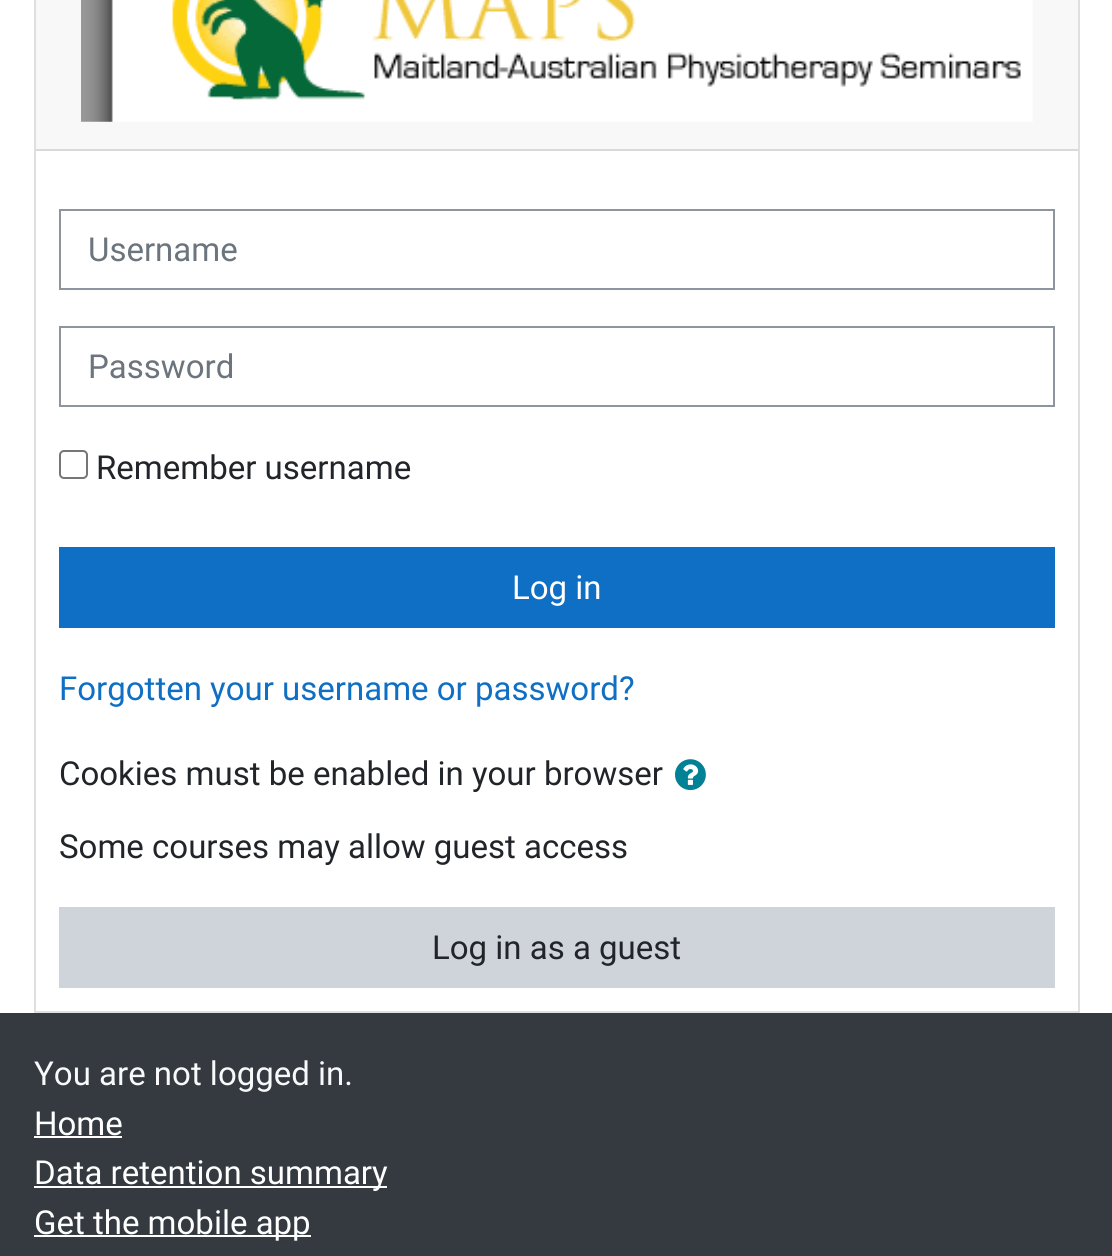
#include <cairo.h>
#include <math.h>
#include <stddef.h>


static void ink(cairo_t *ctx, unsigned color) {
    cairo_set_source_rgb(ctx, (color >> 16) / 255.0, (color >> 8 & 255) / 255.0, (color & 255) / 255.0);
}

static void round_path(cairo_t *ctx, double x, double y, double w, double h, double r) {
    cairo_new_sub_path(ctx);
    cairo_arc(ctx, x + w - r, y + h - r, r, 0, M_PI / 2);
    cairo_arc(ctx, x + r, y + h - r, r, M_PI / 2, M_PI);
    cairo_arc(ctx, x + r, y + r, r, M_PI, 1.5 * M_PI);
    cairo_arc(ctx, x + w - r, y + r, r, 1.5 * M_PI, 2 * M_PI);
    cairo_close_path(ctx);
}

static void paste(cairo_t *ctx, const char *path, double x, double y, double w, double h) {
    cairo_surface_t *image = cairo_image_surface_create_from_png(path);
    cairo_save(ctx);
    cairo_set_source_surface(ctx, image, x, y);
    cairo_rectangle(ctx, x, y, w, h);
    cairo_fill(ctx);
    cairo_restore(ctx);
    cairo_surface_destroy(image);
}

int main(void) {
    cairo_surface_t *surface = cairo_image_surface_create(CAIRO_FORMAT_RGB24, 1112, 1256);
    cairo_t *ctx = cairo_create(surface);
    cairo_font_options_t *options = cairo_font_options_create();
    cairo_font_options_set_hint_metrics(options, CAIRO_HINT_METRICS_OFF);
    cairo_font_options_set_hint_style(options, CAIRO_HINT_STYLE_NONE);
    cairo_set_font_options(ctx, options);
    cairo_set_miter_limit(ctx, 4);
    ink(ctx, 0xFFFFFF);
    cairo_paint(ctx);
    cairo_rectangle(ctx, 35, -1, 1044, 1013);
    ink(ctx, 0xDFDFDF);
    cairo_stroke(ctx);
    ink(ctx, 0xF8F8F8);
    cairo_rectangle(ctx, 36, 0, 1042, 149);
    cairo_fill(ctx);
    ink(ctx, 0xD9D9D9);
    cairo_rectangle(ctx, 36, 149, 1042, 2);
    cairo_fill(ctx);
    paste(ctx, "media/1.png", 81, 0, 952, 122);
    cairo_rectangle(ctx, 60, 210, 994, 79);
    ink(ctx, 0x8F959E);
    cairo_stroke(ctx);
    cairo_select_font_face(ctx, "Roboto", CAIRO_FONT_SLANT_NORMAL, CAIRO_FONT_WEIGHT_NORMAL);
    cairo_set_font_size(ctx, 33);
    ink(ctx, 0x6C757D);
    cairo_move_to(ctx, 88, 261);
    cairo_show_text(ctx, "Username");
    cairo_rectangle(ctx, 60, 327, 994, 79);
    ink(ctx, 0x8F959E);
    cairo_stroke(ctx);
    ink(ctx, 0x6C757D);
    cairo_move_to(ctx, 88, 378);
    cairo_show_text(ctx, "Password");
    round_path(ctx, 60, 451, 27, 27, 4);
    ink(ctx, 0x767676);
    cairo_stroke(ctx);
    ink(ctx, 0x212529);
    cairo_move_to(ctx, 96, 479);
    cairo_show_text(ctx, "Remember username");
    ink(ctx, 0x0F6FC5);
    cairo_rectangle(ctx, 59, 547, 996, 81);
    cairo_fill(ctx);
    ink(ctx, 0xFFFFFF);
    cairo_move_to(ctx, 512, 599);
    cairo_show_text(ctx, "Log in");
    ink(ctx, 0x0F6FC5);
    cairo_move_to(ctx, 59, 700);
    cairo_show_text(ctx, "Forgotten your username or password?");
    ink(ctx, 0x212529);
    cairo_move_to(ctx, 59, 785);
    cairo_show_text(ctx, "Cookies must be enabled in your browser");
    paste(ctx, "media/2.png", 675, 759, 31, 32);
    cairo_move_to(ctx, 59, 858);
    cairo_show_text(ctx, "Some courses may allow guest access");
    ink(ctx, 0xCED4DA);
    cairo_rectangle(ctx, 59, 907, 996, 81);
    cairo_fill(ctx);
    ink(ctx, 0x212529);
    cairo_move_to(ctx, 432, 959);
    cairo_show_text(ctx, "Log in as a guest");
    ink(ctx, 0x343A40);
    cairo_rectangle(ctx, 0, 1013, 1112, 243);
    cairo_fill(ctx);
    ink(ctx, 0xF8F9FA);
    cairo_move_to(ctx, 34, 1085);
    cairo_show_text(ctx, "You are not logged in.");
    ink(ctx, 0xFFFFFF);
    cairo_move_to(ctx, 34, 1135);
    cairo_show_text(ctx, "Home");
    cairo_rectangle(ctx, 34, 1136, 88, 2);
    cairo_fill(ctx);
    cairo_rectangle(ctx, 34, 1186, 353, 2);
    cairo_fill(ctx);
    cairo_move_to(ctx, 34, 1184);
    cairo_show_text(ctx, "Data retention summary");
    cairo_rectangle(ctx, 34, 1235, 277, 2);
    cairo_fill(ctx);
    cairo_move_to(ctx, 34, 1234);
    cairo_show_text(ctx, "Get the mobile app");
    cairo_surface_write_to_png(surface, "image.png");
    cairo_font_options_destroy(options);
    cairo_destroy(ctx);
    cairo_surface_destroy(surface);
    return 0;
}
